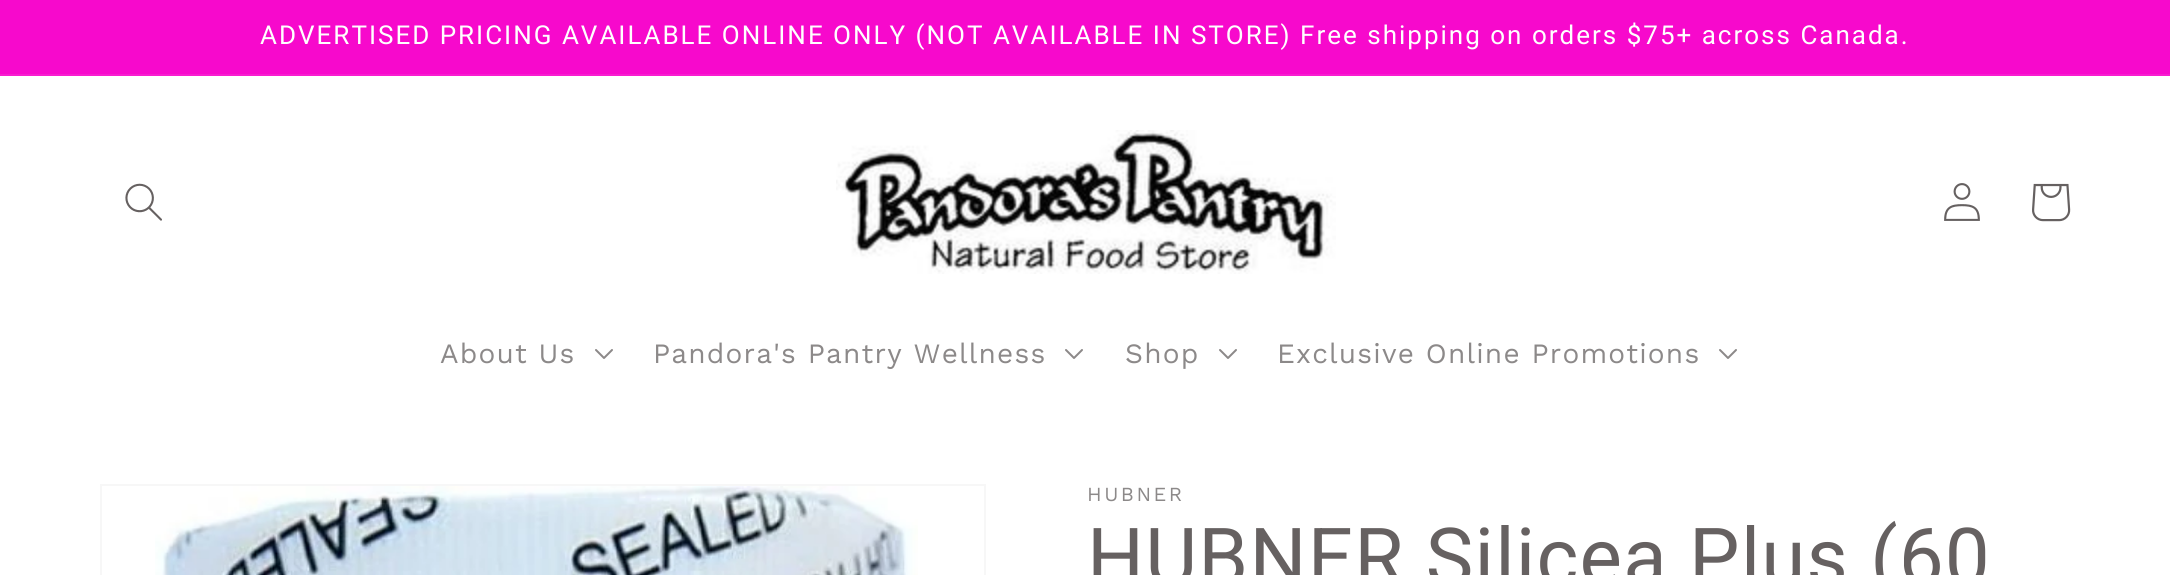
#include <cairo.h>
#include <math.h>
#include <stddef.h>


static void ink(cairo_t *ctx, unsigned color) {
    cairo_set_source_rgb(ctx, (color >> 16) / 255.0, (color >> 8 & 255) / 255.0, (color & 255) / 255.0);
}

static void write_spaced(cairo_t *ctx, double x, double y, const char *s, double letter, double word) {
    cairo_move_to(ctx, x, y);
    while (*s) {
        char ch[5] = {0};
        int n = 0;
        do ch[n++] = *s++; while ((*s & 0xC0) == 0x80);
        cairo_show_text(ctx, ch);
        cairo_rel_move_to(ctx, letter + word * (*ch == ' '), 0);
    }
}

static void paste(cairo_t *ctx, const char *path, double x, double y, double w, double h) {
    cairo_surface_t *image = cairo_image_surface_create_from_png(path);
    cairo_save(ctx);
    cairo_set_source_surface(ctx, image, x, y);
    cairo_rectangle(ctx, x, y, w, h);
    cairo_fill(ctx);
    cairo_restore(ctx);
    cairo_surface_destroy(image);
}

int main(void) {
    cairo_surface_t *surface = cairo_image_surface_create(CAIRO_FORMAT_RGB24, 2170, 575);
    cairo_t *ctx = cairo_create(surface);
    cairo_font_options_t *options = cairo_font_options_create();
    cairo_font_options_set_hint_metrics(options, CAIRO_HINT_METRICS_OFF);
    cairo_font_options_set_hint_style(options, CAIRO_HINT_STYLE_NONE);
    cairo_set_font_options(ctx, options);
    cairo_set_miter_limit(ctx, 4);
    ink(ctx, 0xFFFFFF);
    cairo_paint(ctx);
    ink(ctx, 0xF709CC);
    cairo_rectangle(ctx, 0, 0, 2170, 74);
    cairo_fill(ctx);
    ink(ctx, 0xF81DD0);
    cairo_rectangle(ctx, 0, 74, 2170, 2);
    cairo_fill(ctx);
    cairo_select_font_face(ctx, "Roboto", CAIRO_FONT_SLANT_NORMAL, CAIRO_FONT_WEIGHT_NORMAL);
    cairo_set_font_size(ctx, 26);
    ink(ctx, 0xFFFFFF);
    write_spaced(ctx, 260, 44, "ADVERTISED PRICING AVAILABLE ONLINE ONLY (NOT AVAILABLE IN STORE) Free shipping on orders $75+ across Canada.", 2, 0);
    paste(ctx, "media/1.png", 125, 183, 37, 38);
    paste(ctx, "media/2.png", 836, 130, 500, 144);
    paste(ctx, "media/3.png", 1944, 183, 36, 38);
    paste(ctx, "media/4.png", 2032, 183, 39, 39);
    cairo_select_font_face(ctx, "Work Sans", CAIRO_FONT_SLANT_NORMAL, CAIRO_FONT_WEIGHT_NORMAL);
    cairo_set_font_size(ctx, 28);
    ink(ctx, 0x8C8989);
    write_spaced(ctx, 440, 363, "About Us", 1.2, 0);
    paste(ctx, "media/5.png", 595, 349, 18, 10);
    write_spaced(ctx, 653, 363, "Pandora's Pantry Wellness", 1.2, 0);
    paste(ctx, "media/5.png", 1065, 349, 18, 10);
    write_spaced(ctx, 1125, 363, "Shop", 1.2, 0);
    paste(ctx, "media/5.png", 1219, 349, 18, 10);
    write_spaced(ctx, 1277, 363, "Exclusive Online Promotions", 1.2, 0);
    paste(ctx, "media/5.png", 1719, 349, 18, 10);
    cairo_rectangle(ctx, 101, 485, 884, 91);
    ink(ctx, 0xF7F7F7);
    cairo_stroke(ctx);
    paste(ctx, "media/6.png", 155, 486, 763, 89);
    cairo_set_font_size(ctx, 20);
    ink(ctx, 0x8C8989);
    write_spaced(ctx, 1087, 501, "HUBNER", 2.5, 0);
    cairo_select_font_face(ctx, "Roboto", CAIRO_FONT_SLANT_NORMAL, CAIRO_FONT_WEIGHT_NORMAL);
    cairo_set_font_size(ctx, 80);
    ink(ctx, 0x666161);
    write_spaced(ctx, 1087, 585, "HUBNER Silicea Plus (60", 1.2, 0);
    cairo_surface_write_to_png(surface, "image.png");
    cairo_font_options_destroy(options);
    cairo_destroy(ctx);
    cairo_surface_destroy(surface);
    return 0;
}
